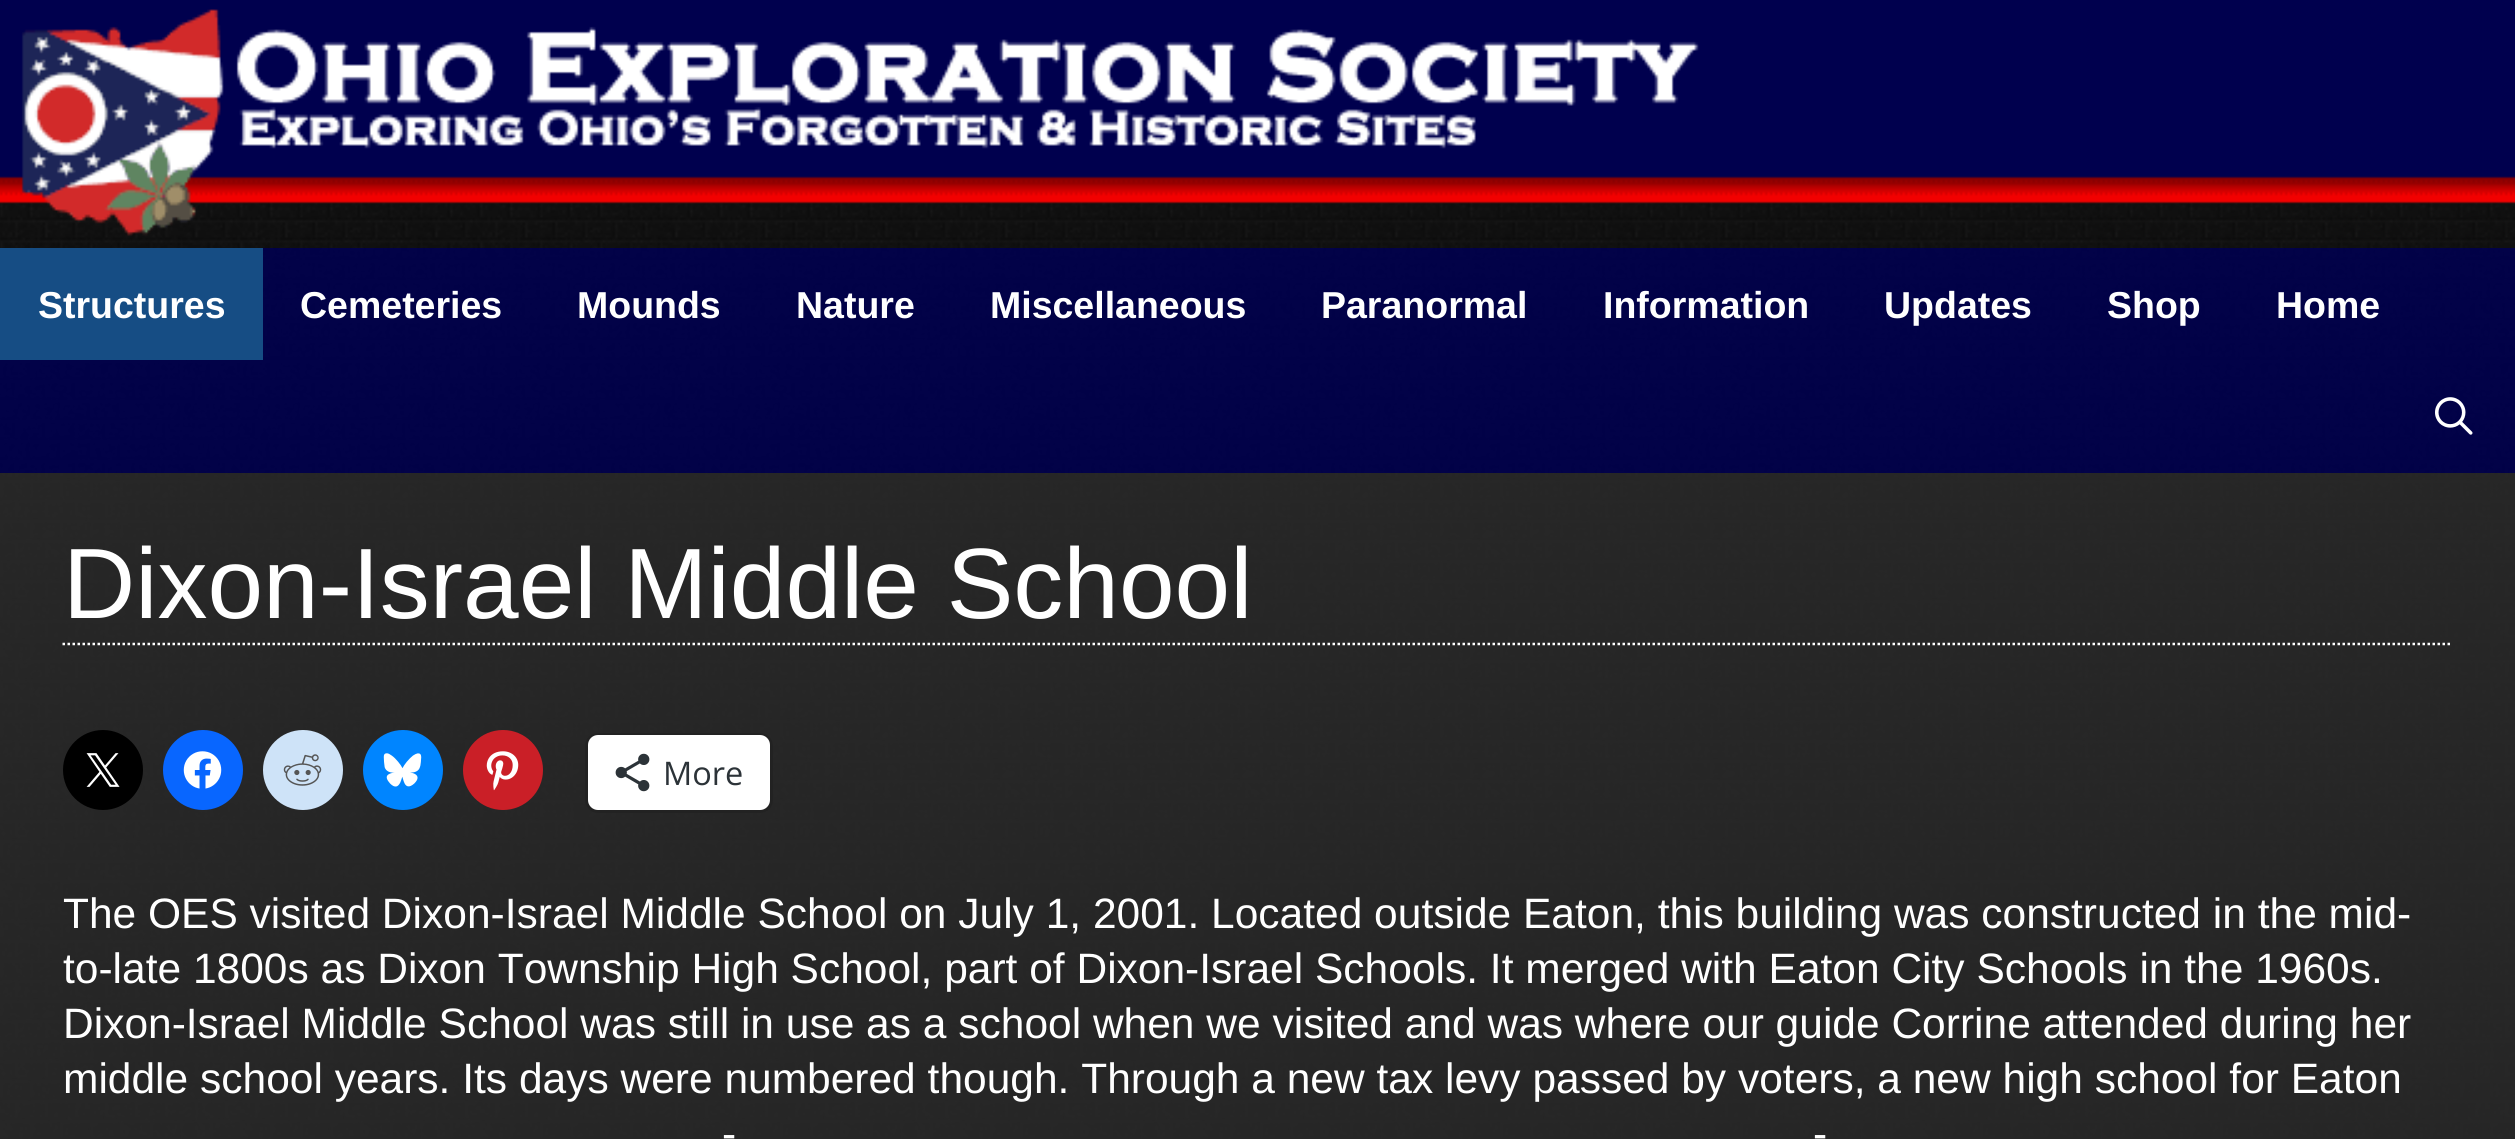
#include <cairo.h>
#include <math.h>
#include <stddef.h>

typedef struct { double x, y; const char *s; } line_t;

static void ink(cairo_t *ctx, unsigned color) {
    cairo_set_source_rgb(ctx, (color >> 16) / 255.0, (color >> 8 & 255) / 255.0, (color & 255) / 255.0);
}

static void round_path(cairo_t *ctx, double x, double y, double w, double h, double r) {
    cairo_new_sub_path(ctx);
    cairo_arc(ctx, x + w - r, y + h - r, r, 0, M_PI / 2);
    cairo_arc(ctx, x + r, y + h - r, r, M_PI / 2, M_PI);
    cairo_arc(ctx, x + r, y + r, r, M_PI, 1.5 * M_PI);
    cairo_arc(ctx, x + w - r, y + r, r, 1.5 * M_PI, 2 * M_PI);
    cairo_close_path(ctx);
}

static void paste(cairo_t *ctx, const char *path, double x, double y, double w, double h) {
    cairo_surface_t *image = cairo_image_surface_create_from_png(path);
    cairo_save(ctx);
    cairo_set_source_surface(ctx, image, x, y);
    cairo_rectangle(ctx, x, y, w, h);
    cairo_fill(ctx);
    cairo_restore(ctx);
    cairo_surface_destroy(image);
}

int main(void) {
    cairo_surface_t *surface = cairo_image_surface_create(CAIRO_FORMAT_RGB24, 2515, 1139);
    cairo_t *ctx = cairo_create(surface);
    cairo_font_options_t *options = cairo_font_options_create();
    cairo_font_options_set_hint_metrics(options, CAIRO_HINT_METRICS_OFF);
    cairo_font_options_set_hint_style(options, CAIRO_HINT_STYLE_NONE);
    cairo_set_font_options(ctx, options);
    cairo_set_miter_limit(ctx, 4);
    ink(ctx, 0xFFFFFF);
    cairo_paint(ctx);
    paste(ctx, "media/1.png", 0, 201, 2515, 938);
    paste(ctx, "media/2.png", 0, 0, 2515, 204);
    paste(ctx, "media/3.png", 21, 9, 1678, 227);
    cairo_set_source_rgba(ctx, 0, 0, 0.306, 0.9);
    cairo_rectangle(ctx, 0, 248, 2515, 225);
    cairo_fill(ctx);
    ink(ctx, 0x164D84);
    cairo_rectangle(ctx, 0, 248, 263, 112);
    cairo_fill(ctx);
    cairo_select_font_face(ctx, "Liberation Sans", CAIRO_FONT_SLANT_NORMAL, CAIRO_FONT_WEIGHT_BOLD);
    cairo_set_font_size(ctx, 37.5);
    ink(ctx, 0xFFFFFF);
    {
        static const line_t items[] = {
            {38, 318, "Structures"},
            {300, 318, "Cemeteries"},
            {577, 318, "Mounds"},
            {796, 318, "Nature"},
            {990, 318, "Miscellaneous"},
            {1321, 318, "Paranormal"},
            {1603, 318, "Information"},
            {1884, 318, "Updates"},
            {2107, 318, "Shop"},
            {2276, 318, "Home"},
        };
        for (size_t i = 0; i < sizeof items / sizeof *items; i++) {
            cairo_move_to(ctx, items[i].x, items[i].y);
            cairo_show_text(ctx, items[i].s);
        }
    }
    paste(ctx, "media/4.png", 2435, 397, 38, 38);
    cairo_set_source_rgba(ctx, 0.176, 0.176, 0.176, 0.79);
    cairo_rectangle(ctx, 0, 473, 2515, 666);
    cairo_fill(ctx);
    cairo_new_path(ctx);
    cairo_move_to(ctx, 62.5, 644);
    cairo_line_to(ctx, 2452.5, 644);
    ink(ctx, 0xFFFFFF);
    cairo_set_line_width(ctx, 2.5);
    cairo_set_dash(ctx, (double[]){2.5, 2.5}, 2, 0);
    cairo_stroke(ctx);
    cairo_select_font_face(ctx, "Liberation Sans", CAIRO_FONT_SLANT_NORMAL, CAIRO_FONT_WEIGHT_NORMAL);
    cairo_set_font_size(ctx, 100);
    cairo_move_to(ctx, 63, 618);
    cairo_show_text(ctx, "Dixon-Israel Middle School");
    ink(ctx, 0x000000);
    cairo_new_path(ctx);
    cairo_arc(ctx, 103, 770, 40, 0, 2 * M_PI);
    cairo_fill(ctx);
    paste(ctx, "media/5.png", 86, 753, 34, 34);
    ink(ctx, 0x0866FF);
    cairo_arc(ctx, 203, 770, 40, 0, 2 * M_PI);
    cairo_fill(ctx);
    paste(ctx, "media/6.png", 183, 751, 39, 38);
    ink(ctx, 0xCEE3F8);
    cairo_arc(ctx, 303, 770, 40, 0, 2 * M_PI);
    cairo_fill(ctx);
    paste(ctx, "media/7.png", 283, 754, 39, 32);
    ink(ctx, 0x0085FF);
    cairo_arc(ctx, 403, 770, 40, 0, 2 * M_PI);
    cairo_fill(ctx);
    paste(ctx, "media/8.png", 383, 753, 39, 34);
    ink(ctx, 0xCA1F27);
    cairo_arc(ctx, 503, 770, 40, 0, 2 * M_PI);
    cairo_fill(ctx);
    paste(ctx, "media/9.png", 486, 751, 33, 40);
    round_path(ctx, 586.5, 734.5, 185, 77, 11.5);
    ink(ctx, 0x222222);
    cairo_set_line_width(ctx, 3);
    cairo_set_dash(ctx, NULL, 0, 0);
    cairo_stroke(ctx);
    ink(ctx, 0xFFFFFF);
    round_path(ctx, 588, 735, 182, 75, 10);
    cairo_fill(ctx);
    paste(ctx, "media/10.png", 615, 753, 35, 39);
    cairo_select_font_face(ctx, "Open Sans", CAIRO_FONT_SLANT_NORMAL, CAIRO_FONT_WEIGHT_NORMAL);
    cairo_set_font_size(ctx, 32.5);
    ink(ctx, 0x2C3338);
    cairo_move_to(ctx, 663, 785);
    cairo_show_text(ctx, "More");
    cairo_select_font_face(ctx, "Liberation Sans", CAIRO_FONT_SLANT_NORMAL, CAIRO_FONT_WEIGHT_NORMAL);
    cairo_set_font_size(ctx, 42.5);
    ink(ctx, 0xFFFFFF);
    {
        static const line_t items[] = {
            {63, 928, "The OES visited Dixon-Israel Middle School on July 1, 2001. Located outside Eaton, this building was constructed in the mid-"},
            {63, 983, "to-late 1800s as Dixon Township High School, part of Dixon-Israel Schools. It merged with Eaton City Schools in the 1960s."},
            {63, 1038, "Dixon-Israel Middle School was still in use as a school when we visited and was where our guide Corrine attended during her"},
            {63, 1093, "middle school years. Its days were numbered though. Through a new tax levy passed by voters, a new high school for Eaton"},
            {722, 1148, "-"},
            {1813, 1148, "-"},
        };
        for (size_t i = 0; i < sizeof items / sizeof *items; i++) {
            cairo_move_to(ctx, items[i].x, items[i].y);
            cairo_show_text(ctx, items[i].s);
        }
    }
    cairo_surface_write_to_png(surface, "image.png");
    cairo_font_options_destroy(options);
    cairo_destroy(ctx);
    cairo_surface_destroy(surface);
    return 0;
}
